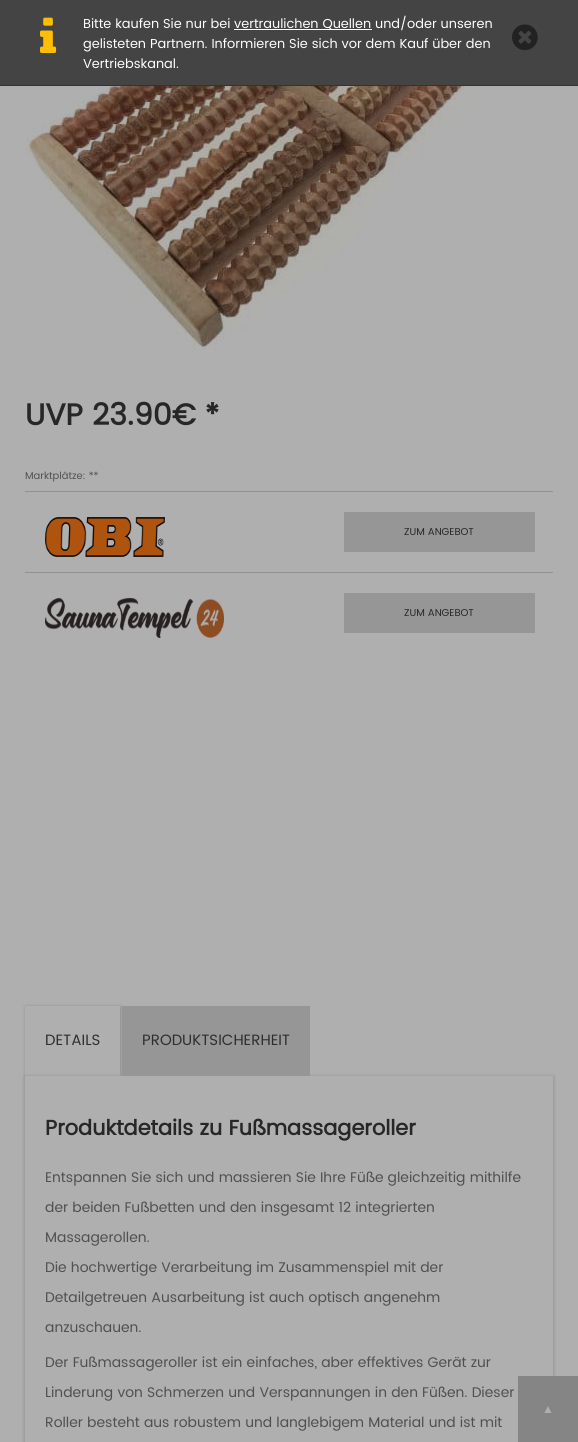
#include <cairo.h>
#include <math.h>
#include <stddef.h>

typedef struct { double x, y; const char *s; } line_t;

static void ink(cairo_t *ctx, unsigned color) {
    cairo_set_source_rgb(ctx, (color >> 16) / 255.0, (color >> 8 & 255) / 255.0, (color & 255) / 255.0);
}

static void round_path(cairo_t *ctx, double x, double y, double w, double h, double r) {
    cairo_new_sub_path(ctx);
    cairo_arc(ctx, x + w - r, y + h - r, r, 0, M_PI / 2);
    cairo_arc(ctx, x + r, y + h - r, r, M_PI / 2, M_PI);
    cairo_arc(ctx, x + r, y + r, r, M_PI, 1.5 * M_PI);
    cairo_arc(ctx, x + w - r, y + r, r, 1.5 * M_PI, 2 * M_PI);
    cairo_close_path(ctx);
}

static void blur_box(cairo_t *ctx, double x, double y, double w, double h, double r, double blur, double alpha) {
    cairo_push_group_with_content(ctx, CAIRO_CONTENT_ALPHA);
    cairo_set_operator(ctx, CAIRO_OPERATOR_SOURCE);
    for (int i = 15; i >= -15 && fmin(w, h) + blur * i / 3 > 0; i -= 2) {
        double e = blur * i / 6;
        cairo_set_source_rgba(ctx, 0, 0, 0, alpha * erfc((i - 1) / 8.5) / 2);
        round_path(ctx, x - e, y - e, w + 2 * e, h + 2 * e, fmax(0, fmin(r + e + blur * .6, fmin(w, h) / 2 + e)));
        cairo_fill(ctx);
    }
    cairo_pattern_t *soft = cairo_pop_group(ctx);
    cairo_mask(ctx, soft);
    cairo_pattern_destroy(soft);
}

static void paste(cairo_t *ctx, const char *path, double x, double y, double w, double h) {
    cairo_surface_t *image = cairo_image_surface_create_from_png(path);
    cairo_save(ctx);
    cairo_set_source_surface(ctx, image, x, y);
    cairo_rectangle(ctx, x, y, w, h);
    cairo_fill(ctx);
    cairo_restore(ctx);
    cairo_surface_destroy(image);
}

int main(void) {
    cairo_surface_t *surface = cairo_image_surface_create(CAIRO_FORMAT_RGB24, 578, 1442);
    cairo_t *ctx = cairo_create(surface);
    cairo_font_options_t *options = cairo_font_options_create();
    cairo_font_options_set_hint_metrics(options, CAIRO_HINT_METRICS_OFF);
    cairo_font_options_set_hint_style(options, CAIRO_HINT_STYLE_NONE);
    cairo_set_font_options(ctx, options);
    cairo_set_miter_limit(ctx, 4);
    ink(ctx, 0xAFAFAF);
    cairo_paint(ctx);
    ink(ctx, 0x444444);
    cairo_rectangle(ctx, 0, 0, 578, 85);
    cairo_fill(ctx);
    ink(ctx, 0x333333);
    cairo_rectangle(ctx, 0, 85, 578, 1);
    cairo_fill(ctx);
    paste(ctx, "media/1.png", 40, 17, 17, 36);
    cairo_select_font_face(ctx, "Poppins", CAIRO_FONT_SLANT_NORMAL, CAIRO_FONT_WEIGHT_NORMAL);
    cairo_set_font_size(ctx, 13);
    ink(ctx, 0xFFFFFF);
    cairo_move_to(ctx, 83, 28);
    cairo_show_text(ctx, "Bitte kaufen Sie nur bei");
    cairo_rectangle(ctx, 234, 29, 138, 1);
    cairo_fill(ctx);
    {
        static const line_t items[] = {
            {234, 28, "vertraulichen Quellen und/oder unseren"},
            {83, 48, "gelisteten Partnern. Informieren Sie sich vor dem Kauf über den"},
            {83, 68, "Vertriebskanal."},
        };
        for (size_t i = 0; i < sizeof items / sizeof *items; i++) {
            cairo_move_to(ctx, items[i].x, items[i].y);
            cairo_show_text(ctx, items[i].s);
        }
    }
    paste(ctx, "media/2.png", 512, 24, 26, 27);
    paste(ctx, "media/3.png", 25, 86, 496, 264);
    cairo_select_font_face(ctx, "Poppins", CAIRO_FONT_SLANT_NORMAL, CAIRO_FONT_WEIGHT_BOLD);
    cairo_set_font_size(ctx, 30);
    ink(ctx, 0x272727);
    cairo_move_to(ctx, 25, 425);
    cairo_show_text(ctx, "UVP 23.90€ *");
    cairo_select_font_face(ctx, "Poppins", CAIRO_FONT_SLANT_NORMAL, CAIRO_FONT_WEIGHT_NORMAL);
    cairo_set_font_size(ctx, 10);
    ink(ctx, 0x505050);
    cairo_move_to(ctx, 25, 479);
    cairo_show_text(ctx, "Marktplätze: **");
    ink(ctx, 0x929292);
    cairo_rectangle(ctx, 25, 491, 528, 1);
    cairo_fill(ctx);
    paste(ctx, "media/4.png", 45, 517, 120, 40);
    ink(ctx, 0x969696);
    cairo_rectangle(ctx, 344, 512, 191, 40);
    cairo_fill(ctx);
    ink(ctx, 0x272727);
    cairo_move_to(ctx, 404, 535);
    cairo_show_text(ctx, "ZUM ANGEBOT");
    ink(ctx, 0x929292);
    cairo_rectangle(ctx, 25, 572, 528, 1);
    cairo_fill(ctx);
    paste(ctx, "media/5.png", 45, 598, 179, 40);
    ink(ctx, 0x969696);
    cairo_rectangle(ctx, 344, 593, 191, 40);
    cairo_fill(ctx);
    ink(ctx, 0x272727);
    cairo_move_to(ctx, 404, 616);
    cairo_show_text(ctx, "ZUM ANGEBOT");
    cairo_save(ctx);
    cairo_set_fill_rule(ctx, CAIRO_FILL_RULE_EVEN_ODD);
    cairo_new_path(ctx);
    cairo_move_to(ctx, 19, 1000);
    cairo_line_to(ctx, 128, 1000);
    cairo_line_to(ctx, 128, 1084);
    cairo_line_to(ctx, 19, 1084);
    cairo_close_path(ctx);
    cairo_move_to(ctx, 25, 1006);
    cairo_line_to(ctx, 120, 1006);
    cairo_line_to(ctx, 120, 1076);
    cairo_line_to(ctx, 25, 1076);
    cairo_close_path(ctx);
    cairo_clip(ctx);
    ink(ctx, 0x969696);
    blur_box(ctx, 25, 1006, 97, 72, 0, 1.5, 1);
    cairo_restore(ctx);
    cairo_set_font_size(ctx, 15);
    ink(ctx, 0x2E2E2E);
    cairo_move_to(ctx, 45, 1045);
    cairo_show_text(ctx, "DETAILS");
    ink(ctx, 0x969696);
    blur_box(ctx, 24, 1076, 530, 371, 0, 1.5, 1);
    ink(ctx, 0x969696);
    cairo_rectangle(ctx, 122, 1006, 188, 70);
    cairo_fill(ctx);
    ink(ctx, 0x2E2E2E);
    cairo_move_to(ctx, 142, 1045);
    cairo_show_text(ctx, "PRODUKTSICHERHEIT");
    ink(ctx, 0xAFAFAF);
    cairo_rectangle(ctx, 25, 1076, 528, 366);
    cairo_fill(ctx);
    cairo_select_font_face(ctx, "Poppins", CAIRO_FONT_SLANT_NORMAL, CAIRO_FONT_WEIGHT_BOLD);
    cairo_set_font_size(ctx, 21);
    ink(ctx, 0x272727);
    cairo_move_to(ctx, 45, 1135);
    cairo_show_text(ctx, "Produktdetails zu Fußmassageroller");
    cairo_select_font_face(ctx, "Poppins", CAIRO_FONT_SLANT_NORMAL, CAIRO_FONT_WEIGHT_NORMAL);
    cairo_set_font_size(ctx, 14);
    ink(ctx, 0x505050);
    {
        static const line_t items[] = {
            {45, 1182, "Entspannen Sie sich und massieren Sie Ihre Füße gleichzeitig mithilfe"},
            {45, 1212, "der beiden Fußbetten und den insgesamt 12 integrierten"},
            {45, 1242, "Massagerollen."},
            {45, 1272, "Die hochwertige Verarbeitung im Zusammenspiel mit der"},
            {45, 1302, "Detailgetreuen Ausarbeitung ist auch optisch angenehm"},
            {45, 1332, "anzuschauen."},
            {45, 1367, "Der Fußmassageroller ist ein einfaches, aber effektives Gerät zur"},
            {45, 1397, "Linderung von Schmerzen und Verspannungen in den Füßen. Dieser"},
            {45, 1427, "Roller besteht aus robustem und langlebigem Material und ist mit"},
        };
        for (size_t i = 0; i < sizeof items / sizeof *items; i++) {
            cairo_move_to(ctx, items[i].x, items[i].y);
            cairo_show_text(ctx, items[i].s);
        }
    }
    ink(ctx, 0x858585);
    cairo_rectangle(ctx, 518, 1376, 60, 66);
    cairo_fill(ctx);
    cairo_select_font_face(ctx, "Liberation Sans", CAIRO_FONT_SLANT_NORMAL, CAIRO_FONT_WEIGHT_NORMAL);
    cairo_set_font_size(ctx, 12);
    ink(ctx, 0xAFAFAF);
    cairo_move_to(ctx, 542, 1413);
    cairo_show_text(ctx, "▲");
    cairo_surface_write_to_png(surface, "image.png");
    cairo_font_options_destroy(options);
    cairo_destroy(ctx);
    cairo_surface_destroy(surface);
    return 0;
}
